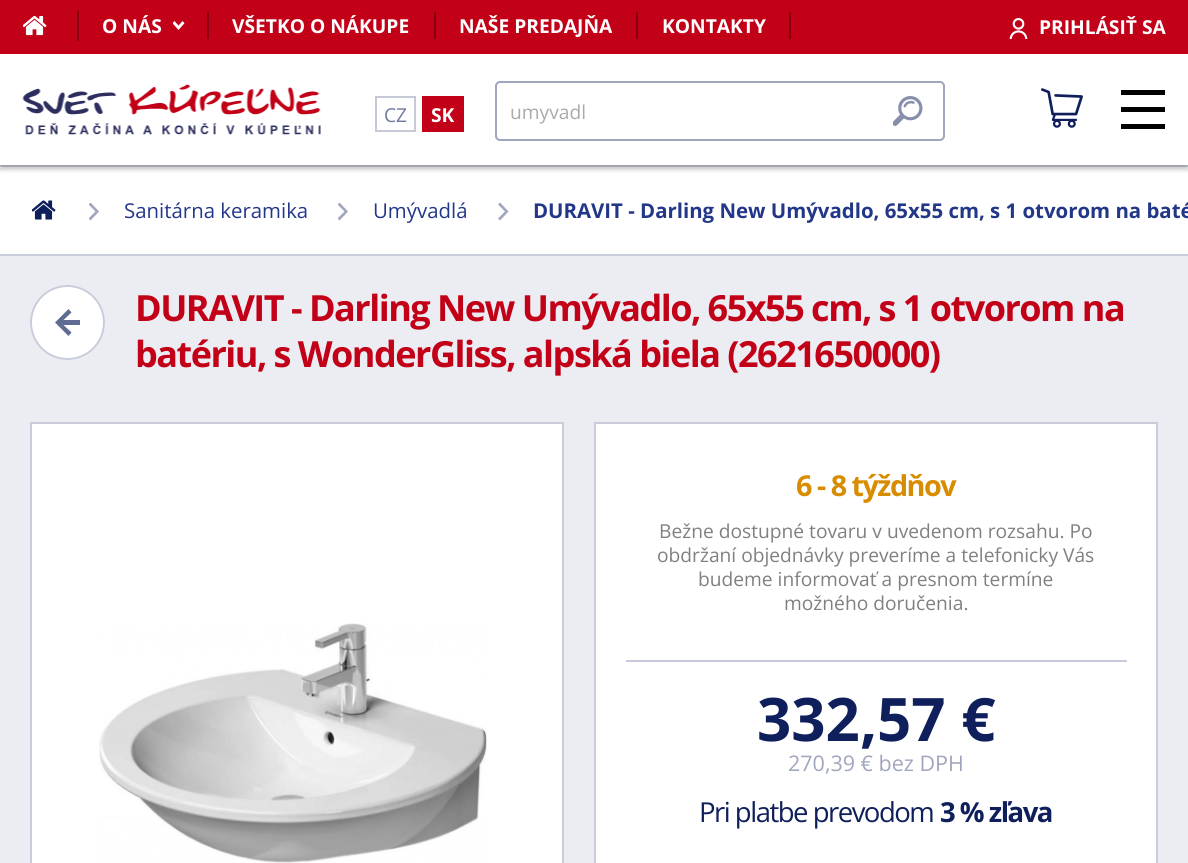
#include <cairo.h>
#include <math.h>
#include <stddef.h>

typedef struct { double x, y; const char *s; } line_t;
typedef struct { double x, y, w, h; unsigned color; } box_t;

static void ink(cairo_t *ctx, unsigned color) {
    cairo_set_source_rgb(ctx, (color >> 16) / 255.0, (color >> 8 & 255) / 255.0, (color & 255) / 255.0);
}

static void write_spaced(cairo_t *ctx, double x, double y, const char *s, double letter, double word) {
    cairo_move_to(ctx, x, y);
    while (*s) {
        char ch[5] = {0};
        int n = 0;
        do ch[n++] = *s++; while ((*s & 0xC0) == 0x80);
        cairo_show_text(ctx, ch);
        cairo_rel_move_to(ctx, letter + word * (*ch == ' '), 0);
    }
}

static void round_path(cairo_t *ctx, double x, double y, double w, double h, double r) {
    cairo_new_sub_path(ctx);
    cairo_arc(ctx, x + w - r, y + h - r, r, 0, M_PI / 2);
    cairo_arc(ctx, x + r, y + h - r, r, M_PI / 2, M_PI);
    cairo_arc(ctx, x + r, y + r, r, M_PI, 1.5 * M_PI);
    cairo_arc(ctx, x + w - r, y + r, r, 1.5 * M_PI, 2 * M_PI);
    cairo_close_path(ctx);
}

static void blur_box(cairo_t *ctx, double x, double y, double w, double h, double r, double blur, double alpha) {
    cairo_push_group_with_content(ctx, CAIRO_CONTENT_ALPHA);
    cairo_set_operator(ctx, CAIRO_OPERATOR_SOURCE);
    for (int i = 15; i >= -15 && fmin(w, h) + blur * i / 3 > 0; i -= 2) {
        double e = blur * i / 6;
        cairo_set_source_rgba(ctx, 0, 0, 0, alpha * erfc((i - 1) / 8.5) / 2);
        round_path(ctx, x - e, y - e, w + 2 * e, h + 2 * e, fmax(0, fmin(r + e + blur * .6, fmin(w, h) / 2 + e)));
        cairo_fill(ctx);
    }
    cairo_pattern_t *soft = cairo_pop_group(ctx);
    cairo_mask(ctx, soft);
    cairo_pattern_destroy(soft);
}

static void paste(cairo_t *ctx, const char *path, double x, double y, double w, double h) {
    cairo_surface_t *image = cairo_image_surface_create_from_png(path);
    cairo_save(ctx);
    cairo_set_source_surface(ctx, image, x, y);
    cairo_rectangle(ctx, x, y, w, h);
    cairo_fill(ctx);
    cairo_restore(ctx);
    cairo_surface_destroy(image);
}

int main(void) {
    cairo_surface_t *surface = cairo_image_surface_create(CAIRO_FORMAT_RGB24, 1188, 863);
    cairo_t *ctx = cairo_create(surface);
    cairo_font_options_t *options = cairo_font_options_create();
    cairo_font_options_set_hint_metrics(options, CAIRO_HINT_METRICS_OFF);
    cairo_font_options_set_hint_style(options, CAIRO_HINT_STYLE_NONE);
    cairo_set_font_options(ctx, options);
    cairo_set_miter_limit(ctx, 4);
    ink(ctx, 0xECEDF2);
    cairo_paint(ctx);
    ink(ctx, 0xFFFFFF);
    cairo_rectangle(ctx, 0, 167, 1188, 87);
    cairo_fill(ctx);
    ink(ctx, 0xC8CCDB);
    cairo_rectangle(ctx, 0, 165, 1188, 2);
    cairo_fill(ctx);
    ink(ctx, 0x000000);
    blur_box(ctx, 0, 5, 1188, 165, 0, 2, 0.2);
    ink(ctx, 0xFFFFFF);
    cairo_rectangle(ctx, 0, 54, 1188, 111);
    cairo_fill(ctx);
    ink(ctx, 0xC20017);
    cairo_rectangle(ctx, 0, 0, 1188, 54);
    cairo_fill(ctx);
    paste(ctx, "media/1.png", 23, 16, 24, 20);
    ink(ctx, 0x880010);
    cairo_rectangle(ctx, 77, 11, 2, 30);
    cairo_fill(ctx);
    paste(ctx, "media/2.png", 173, 21, 12, 9);
    cairo_rectangle(ctx, 207, 12, 2, 27);
    cairo_fill(ctx);
    cairo_select_font_face(ctx, "Open Sans", CAIRO_FONT_SLANT_NORMAL, CAIRO_FONT_WEIGHT_BOLD);
    cairo_set_font_size(ctx, 19.2);
    ink(ctx, 0xFFFFFF);
    cairo_move_to(ctx, 102, 33);
    cairo_show_text(ctx, "O NÁS");
    ink(ctx, 0x880010);
    cairo_rectangle(ctx, 434, 12, 2, 27);
    cairo_fill(ctx);
    ink(ctx, 0xFFFFFF);
    cairo_move_to(ctx, 232, 33);
    cairo_show_text(ctx, "VŠETKO O NÁKUPE");
    ink(ctx, 0x880010);
    cairo_rectangle(ctx, 636, 12, 2, 27);
    cairo_fill(ctx);
    ink(ctx, 0xFFFFFF);
    cairo_move_to(ctx, 459, 33);
    cairo_show_text(ctx, "NAŠE PREDAJŇA");
    ink(ctx, 0x880010);
    cairo_rectangle(ctx, 789, 12, 2, 27);
    cairo_fill(ctx);
    ink(ctx, 0xFFFFFF);
    cairo_move_to(ctx, 662, 33);
    cairo_show_text(ctx, "KONTAKTY");
    paste(ctx, "media/3.png", 1009, 18, 19, 21);
    cairo_move_to(ctx, 1039, 34);
    cairo_show_text(ctx, "PRIHLÁSIŤ SA");
    paste(ctx, "media/4.png", 22, 84, 299, 51);
    cairo_rectangle(ctx, 376, 97, 39, 34);
    ink(ctx, 0xC6CAD7);
    cairo_stroke(ctx);
    cairo_select_font_face(ctx, "Open Sans", CAIRO_FONT_SLANT_NORMAL, CAIRO_FONT_WEIGHT_NORMAL);
    ink(ctx, 0x6F799D);
    cairo_move_to(ctx, 384, 122);
    cairo_show_text(ctx, "CZ");
    ink(ctx, 0xC20017);
    cairo_rectangle(ctx, 422, 96, 42, 36);
    cairo_fill(ctx);
    cairo_select_font_face(ctx, "Open Sans", CAIRO_FONT_SLANT_NORMAL, CAIRO_FONT_WEIGHT_BOLD);
    ink(ctx, 0xFFFFFF);
    cairo_move_to(ctx, 431, 122);
    cairo_show_text(ctx, "SK");
    round_path(ctx, 496, 82, 448, 58, 4);
    ink(ctx, 0xA0A6BD);
    cairo_stroke(ctx);
    cairo_select_font_face(ctx, "Open Sans", CAIRO_FONT_SLANT_NORMAL, CAIRO_FONT_WEIGHT_NORMAL);
    ink(ctx, 0xAAAAAA);
    cairo_move_to(ctx, 510, 119);
    cairo_show_text(ctx, "umyvadl");
    paste(ctx, "media/5.png", 893, 96, 30, 30);
    paste(ctx, "media/6.png", 1041, 88, 42, 40);
    {
        static const box_t items[] = {
            {1121, 124, 44, 5, 0x000000},
            {1121, 107, 44, 5, 0x000000},
            {1121, 90, 44, 5, 0x000000},
            {0, 254, 1188, 2, 0xC8CCDB},
        };
        for (size_t i = 0; i < sizeof items / sizeof *items; i++) {
            ink(ctx, items[i].color);
            cairo_rectangle(ctx, items[i].x, items[i].y, items[i].w, items[i].h);
            cairo_fill(ctx);
        }
    }
    paste(ctx, "media/7.png", 32, 200, 24, 20);
    cairo_save(ctx);
    cairo_rectangle(ctx, 89, 203, 10, 18);
    cairo_clip(ctx);
    ink(ctx, 0xA0A6BD);
    cairo_set_fill_rule(ctx, CAIRO_FILL_RULE_EVEN_ODD);
    cairo_new_path(ctx);
    cairo_move_to(ctx, 90.5, 220.5);
    cairo_line_to(ctx, 99, 211.5);
    cairo_line_to(ctx, 90.5, 202.5);
    cairo_line_to(ctx, 88.5, 204.5);
    cairo_line_to(ctx, 95.5, 211.5);
    cairo_line_to(ctx, 88.5, 218.5);
    cairo_close_path(ctx);
    cairo_fill(ctx);
    cairo_restore(ctx);
    cairo_set_font_size(ctx, 20.4);
    ink(ctx, 0x233788);
    cairo_move_to(ctx, 124, 218);
    cairo_show_text(ctx, "Sanitárna keramika");
    cairo_save(ctx);
    cairo_rectangle(ctx, 338, 203, 10, 18);
    cairo_clip(ctx);
    ink(ctx, 0xA0A6BD);
    cairo_set_fill_rule(ctx, CAIRO_FILL_RULE_EVEN_ODD);
    cairo_new_path(ctx);
    cairo_move_to(ctx, 339.5, 220.5);
    cairo_line_to(ctx, 348, 211.5);
    cairo_line_to(ctx, 339.5, 202.5);
    cairo_line_to(ctx, 337.5, 204.5);
    cairo_line_to(ctx, 344.5, 211.5);
    cairo_line_to(ctx, 337.5, 218.5);
    cairo_close_path(ctx);
    cairo_fill(ctx);
    cairo_restore(ctx);
    cairo_move_to(ctx, 373, 218);
    cairo_show_text(ctx, "Umývadlá");
    ink(ctx, 0xA0A6BD);
    cairo_set_fill_rule(ctx, CAIRO_FILL_RULE_EVEN_ODD);
    cairo_new_path(ctx);
    cairo_move_to(ctx, 500, 220.5);
    cairo_line_to(ctx, 508.5, 211.5);
    cairo_line_to(ctx, 500, 202.5);
    cairo_line_to(ctx, 498, 204.5);
    cairo_line_to(ctx, 505, 211.5);
    cairo_line_to(ctx, 498, 218.5);
    cairo_close_path(ctx);
    cairo_fill(ctx);
    cairo_select_font_face(ctx, "Open Sans", CAIRO_FONT_SLANT_NORMAL, CAIRO_FONT_WEIGHT_BOLD);
    ink(ctx, 0x233788);
    cairo_move_to(ctx, 533, 218);
    cairo_show_text(ctx, "DURAVIT - Darling New Umývadlo, 65x55 cm, s 1 otvorom na baté");
    ink(ctx, 0xFFFFFF);
    cairo_new_path(ctx);
    cairo_arc(ctx, 67.5, 322.5, 37.5, 0, 2 * M_PI);
    cairo_fill(ctx);
    ink(ctx, 0x606B93);
    cairo_set_fill_rule(ctx, CAIRO_FILL_RULE_WINDING);
    cairo_new_path(ctx);
    cairo_move_to(ctx, 68.5, 336);
    cairo_line_to(ctx, 71.5, 332.5);
    cairo_line_to(ctx, 63.5, 325);
    cairo_line_to(ctx, 80, 325);
    cairo_line_to(ctx, 80, 320);
    cairo_line_to(ctx, 63.5, 320);
    cairo_line_to(ctx, 71.5, 312.5);
    cairo_line_to(ctx, 68.5, 309);
    cairo_line_to(ctx, 55, 322.5);
    cairo_close_path(ctx);
    cairo_fill(ctx);
    cairo_arc(ctx, 67.5, 322.5, 36.5, 0, 2 * M_PI);
    ink(ctx, 0xC8CCDB);
    cairo_stroke(ctx);
    cairo_set_font_size(ctx, 36);
    ink(ctx, 0xC20017);
    write_spaced(ctx, 135, 321, "DURAVIT - Darling New Umývadlo, 65x55 cm, s 1 otvorom na", -1.5, 0);
    write_spaced(ctx, 135, 367, "batériu, s WonderGliss, alpská biela (2621650000)", -1.5, 0);
    ink(ctx, 0xFFFFFF);
    cairo_rectangle(ctx, 31, 423, 532, 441);
    cairo_fill_preserve(ctx);
    ink(ctx, 0xC8CCDB);
    cairo_stroke(ctx);
    paste(ctx, "media/8.png", 99, 623, 390, 240);
    ink(ctx, 0xFFFFFF);
    cairo_rectangle(ctx, 595, 423, 562, 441);
    cairo_fill_preserve(ctx);
    ink(ctx, 0xC8CCDB);
    cairo_stroke(ctx);
    cairo_set_font_size(ctx, 28.75);
    ink(ctx, 0xD88C00);
    write_spaced(ctx, 796, 496, "6 - 8 týždňov", -1.5, 0);
    cairo_select_font_face(ctx, "Open Sans", CAIRO_FONT_SLANT_NORMAL, CAIRO_FONT_WEIGHT_NORMAL);
    cairo_set_font_size(ctx, 19.2);
    ink(ctx, 0x808080);
    {
        static const line_t items[] = {
            {659, 538, "Bežne dostupné tovaru v uvedenom rozsahu. Po"},
            {657, 562, "obdržaní objednávky preveríme a telefonicky Vás"},
            {698, 586, "budeme informovať a presnom termíne"},
            {784, 610, "možného doručenia."},
        };
        for (size_t i = 0; i < sizeof items / sizeof *items; i++) {
            cairo_move_to(ctx, items[i].x, items[i].y);
            cairo_show_text(ctx, items[i].s);
        }
    }
    ink(ctx, 0xC6CADB);
    cairo_rectangle(ctx, 626, 660, 501, 2);
    cairo_fill(ctx);
    cairo_select_font_face(ctx, "Open Sans", CAIRO_FONT_SLANT_NORMAL, CAIRO_FONT_WEIGHT_BOLD);
    cairo_set_font_size(ctx, 60);
    ink(ctx, 0x0F1F5B);
    cairo_move_to(ctx, 757, 741);
    cairo_show_text(ctx, "332,57 €");
    cairo_select_font_face(ctx, "Open Sans", CAIRO_FONT_SLANT_NORMAL, CAIRO_FONT_WEIGHT_NORMAL);
    cairo_set_font_size(ctx, 21.5);
    ink(ctx, 0xA0A6BD);
    cairo_move_to(ctx, 788, 771);
    cairo_show_text(ctx, "270,39 € bez DPH");
    cairo_set_font_size(ctx, 27.5);
    ink(ctx, 0x0F1F5B);
    write_spaced(ctx, 699, 822, "Pri platbe prevodom", -1.5, 0);
    cairo_select_font_face(ctx, "Open Sans", CAIRO_FONT_SLANT_NORMAL, CAIRO_FONT_WEIGHT_BOLD);
    write_spaced(ctx, 940, 822, "3 % zľava", -1.5, 0);
    cairo_surface_write_to_png(surface, "image.png");
    cairo_font_options_destroy(options);
    cairo_destroy(ctx);
    cairo_surface_destroy(surface);
    return 0;
}
